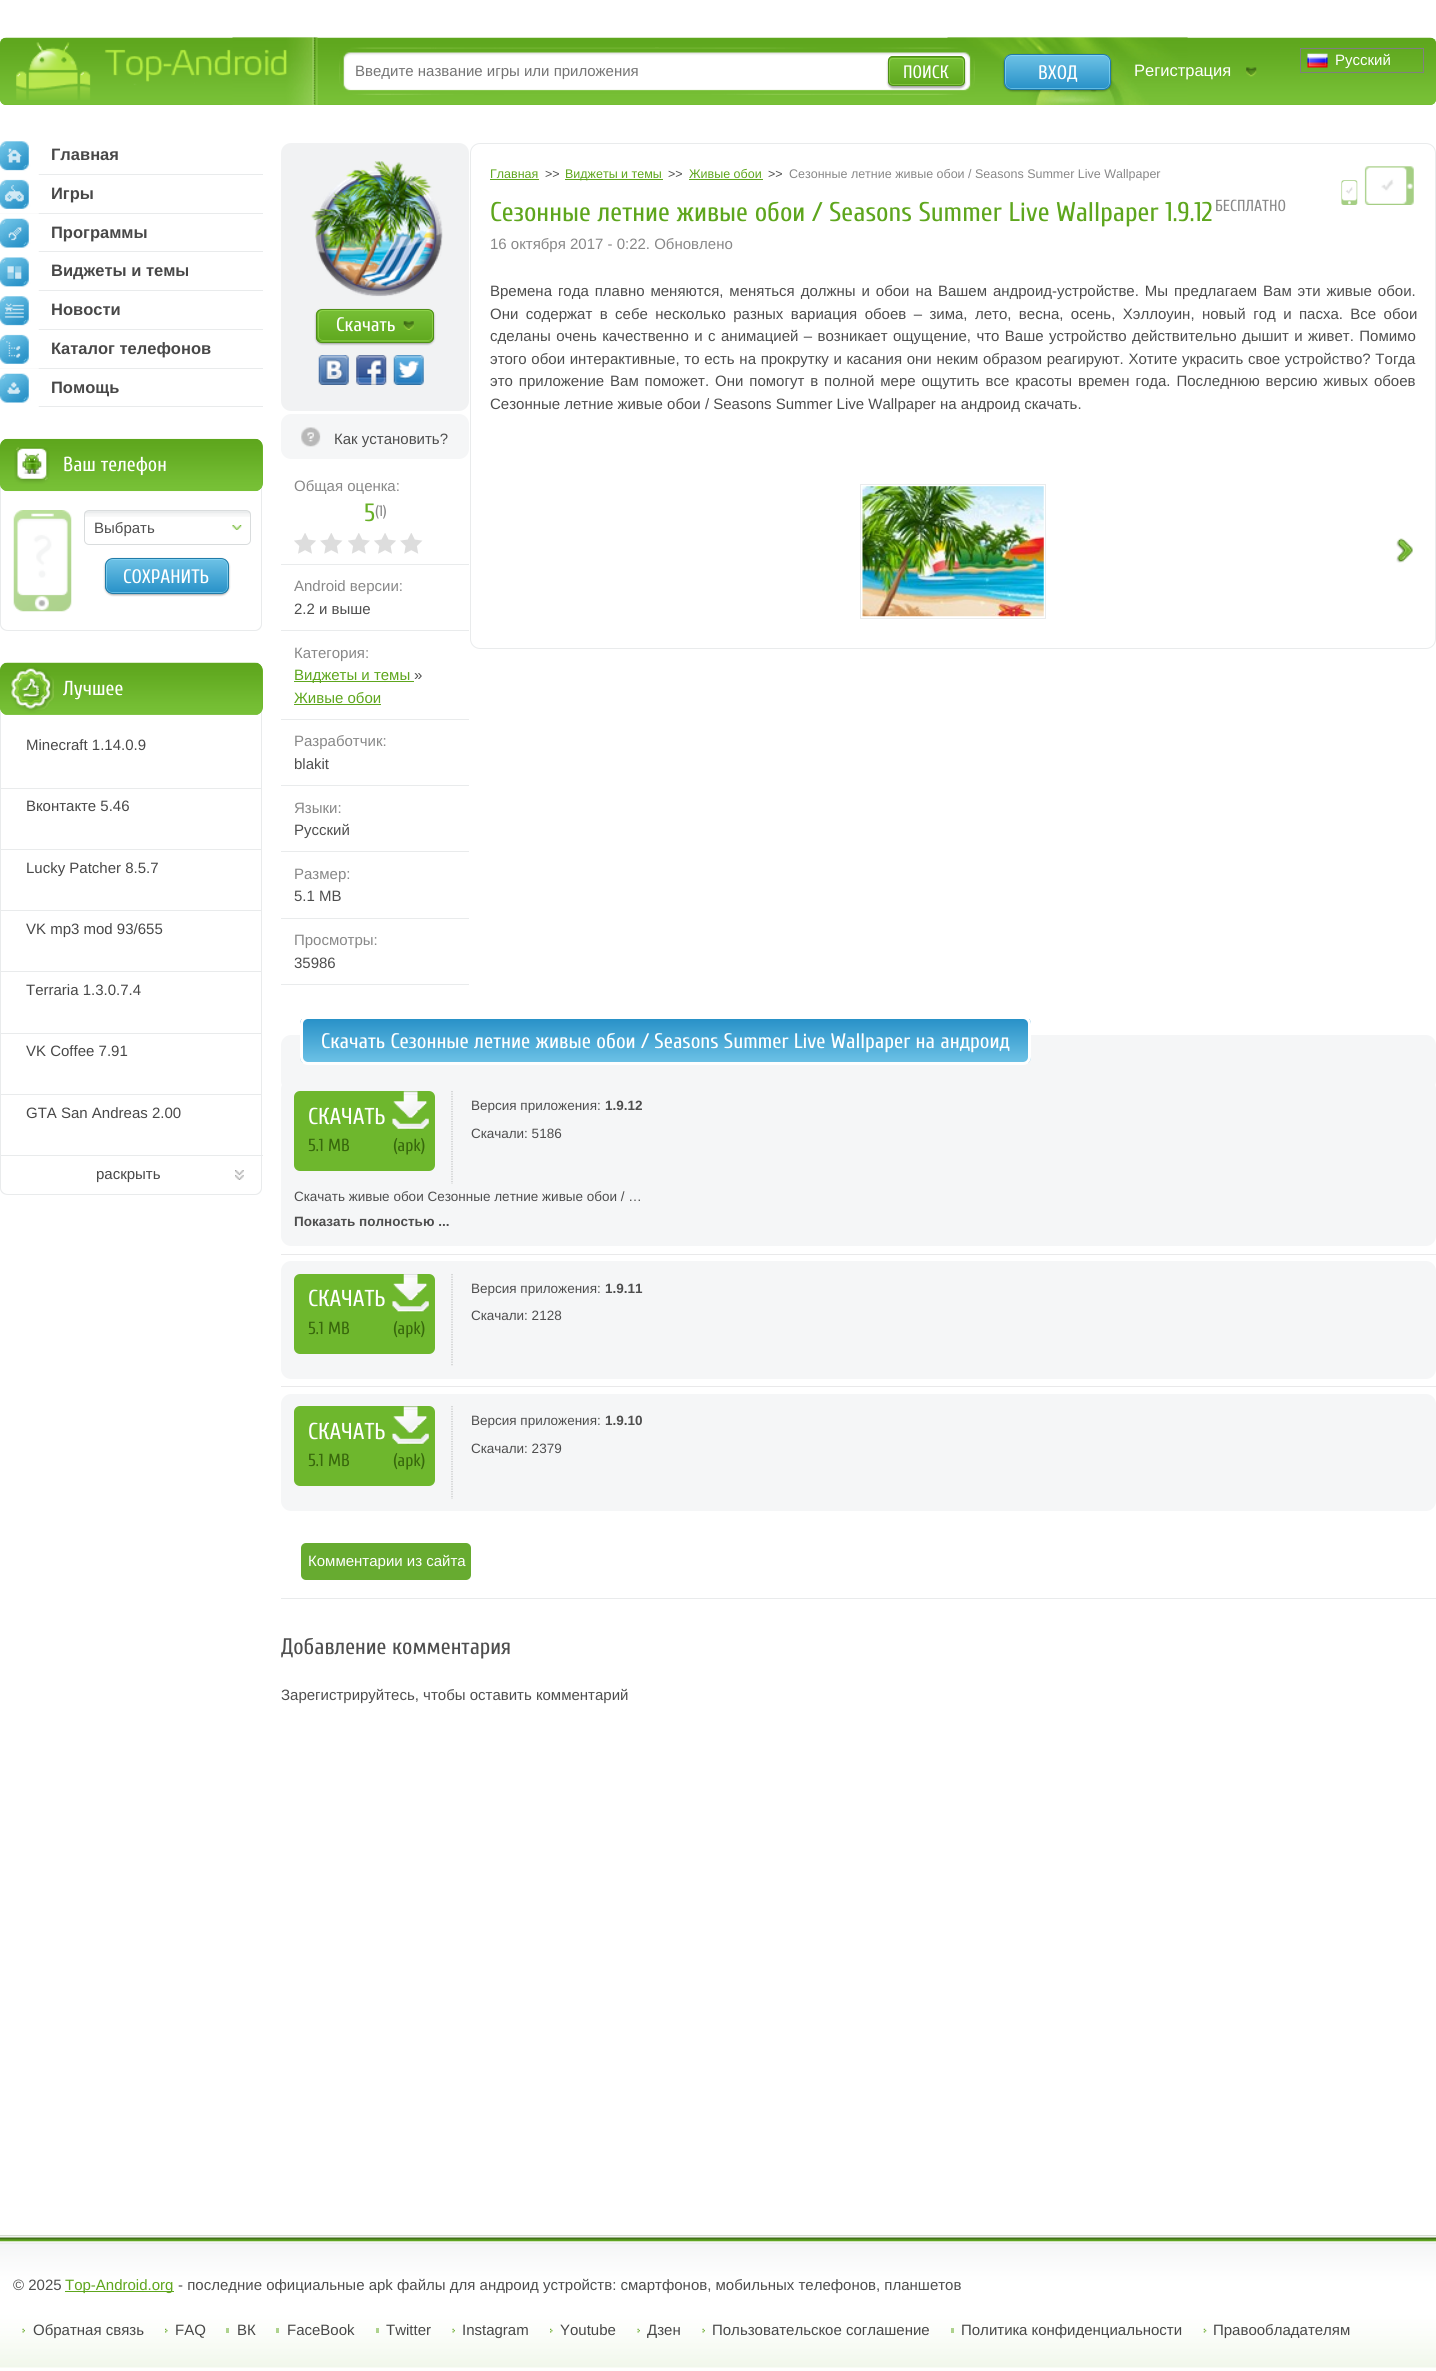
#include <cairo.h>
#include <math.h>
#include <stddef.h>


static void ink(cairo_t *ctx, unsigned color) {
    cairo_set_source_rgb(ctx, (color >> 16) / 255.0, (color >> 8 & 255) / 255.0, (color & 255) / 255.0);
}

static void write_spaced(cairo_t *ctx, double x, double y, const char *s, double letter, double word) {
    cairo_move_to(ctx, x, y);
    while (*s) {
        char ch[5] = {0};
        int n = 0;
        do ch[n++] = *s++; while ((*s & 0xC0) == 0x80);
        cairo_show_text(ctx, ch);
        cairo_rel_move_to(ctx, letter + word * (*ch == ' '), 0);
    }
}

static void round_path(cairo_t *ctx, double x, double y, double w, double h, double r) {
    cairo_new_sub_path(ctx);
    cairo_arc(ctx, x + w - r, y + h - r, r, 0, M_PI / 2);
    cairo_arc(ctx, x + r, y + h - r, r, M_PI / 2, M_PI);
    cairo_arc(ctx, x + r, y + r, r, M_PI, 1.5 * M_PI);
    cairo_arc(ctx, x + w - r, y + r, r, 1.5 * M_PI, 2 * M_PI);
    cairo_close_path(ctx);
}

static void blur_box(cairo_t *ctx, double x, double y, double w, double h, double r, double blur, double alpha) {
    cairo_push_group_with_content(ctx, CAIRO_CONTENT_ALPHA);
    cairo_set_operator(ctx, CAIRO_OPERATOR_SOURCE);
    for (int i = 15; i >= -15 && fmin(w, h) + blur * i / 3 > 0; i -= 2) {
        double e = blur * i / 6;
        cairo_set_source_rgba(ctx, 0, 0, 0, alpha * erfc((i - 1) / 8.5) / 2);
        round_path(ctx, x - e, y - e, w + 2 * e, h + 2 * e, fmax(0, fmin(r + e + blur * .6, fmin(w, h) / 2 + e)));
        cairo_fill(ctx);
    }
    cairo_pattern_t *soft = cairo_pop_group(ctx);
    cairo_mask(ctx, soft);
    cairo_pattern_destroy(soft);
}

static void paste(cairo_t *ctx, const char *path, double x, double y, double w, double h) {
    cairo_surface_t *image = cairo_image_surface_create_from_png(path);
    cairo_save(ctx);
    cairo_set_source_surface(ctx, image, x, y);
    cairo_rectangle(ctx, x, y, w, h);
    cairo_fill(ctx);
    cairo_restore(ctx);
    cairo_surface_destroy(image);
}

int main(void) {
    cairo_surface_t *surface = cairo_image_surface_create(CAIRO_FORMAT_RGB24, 1436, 2371);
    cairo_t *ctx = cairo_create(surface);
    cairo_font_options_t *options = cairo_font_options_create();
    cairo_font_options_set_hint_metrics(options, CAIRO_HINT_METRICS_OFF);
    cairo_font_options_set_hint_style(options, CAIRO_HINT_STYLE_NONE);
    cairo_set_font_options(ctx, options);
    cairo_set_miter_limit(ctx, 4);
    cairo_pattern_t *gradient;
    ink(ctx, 0xFFFFFF);
    cairo_paint(ctx);
    ink(ctx, 0x6DB52B);
    round_path(ctx, 0, 38, 1436, 67, 6);
    cairo_fill(ctx);
    paste(ctx, "media/1.png", 0, 37, 1436, 68);
    paste(ctx, "media/2.png", 947, 37, 241, 68);
    paste(ctx, "media/3.png", 232, 37, 86, 68);
    paste(ctx, "media/4.png", 16, 42, 271, 58);
    paste(ctx, "media/5.png", 1307, 53, 21, 15);
    cairo_rectangle(ctx, 1300.5, 48.5, 123, 24);
    ink(ctx, 0x808080);
    cairo_set_line_width(ctx, 1);
    cairo_stroke(ctx);
    cairo_select_font_face(ctx, "Liberation Sans", CAIRO_FONT_SLANT_NORMAL, CAIRO_FONT_WEIGHT_NORMAL);
    cairo_set_font_size(ctx, 15);
    ink(ctx, 0xFFFFFF);
    cairo_move_to(ctx, 1335, 65);
    cairo_show_text(ctx, "Русский");
    paste(ctx, "media/6.png", 339, 47, 320, 48);
    paste(ctx, "media/7.png", 655, 47, 320, 48);
    ink(ctx, 0x757575);
    cairo_move_to(ctx, 355, 76);
    cairo_show_text(ctx, "Введите название игры или приложения");
    ink(ctx, 0x000000);
    blur_box(ctx, 888, 58, 77, 30, 5, 1, 0.35);
    cairo_save(ctx);
    round_path(ctx, 888, 56, 77, 30, 5);
    cairo_clip(ctx);
    gradient = cairo_pattern_create_linear(926, 58, 926, 30);
    cairo_pattern_add_color_stop_rgba(gradient, 0, 0.376, 0.659, 0.122, 1);
    cairo_pattern_add_color_stop_rgba(gradient, 1, 0.467, 0.749, 0.208, 1);
    cairo_set_source(ctx, gradient);
    cairo_pattern_destroy(gradient);
    cairo_rectangle(ctx, 888, 56, 77, 2);
    cairo_fill(ctx);
    gradient = cairo_pattern_create_linear(926, 85, 926, 58);
    cairo_pattern_add_color_stop_rgba(gradient, 0, 0.376, 0.659, 0.122, 1);
    cairo_pattern_add_color_stop_rgba(gradient, 1, 0.467, 0.749, 0.208, 1);
    cairo_set_source(ctx, gradient);
    cairo_pattern_destroy(gradient);
    cairo_rectangle(ctx, 888, 58, 77, 27);
    cairo_fill(ctx);
    cairo_restore(ctx);
    round_path(ctx, 889.5, 58.5, 74, 26, 3.5);
    cairo_set_source_rgba(ctx, 0.686, 0.929, 0.404, 0.4);
    cairo_stroke(ctx);
    round_path(ctx, 888.5, 56.5, 76, 29, 4.5);
    ink(ctx, 0x4F8E17);
    cairo_stroke(ctx);
    cairo_select_font_face(ctx, "Cuprum", CAIRO_FONT_SLANT_NORMAL, CAIRO_FONT_WEIGHT_NORMAL);
    cairo_set_font_size(ctx, 18);
    ink(ctx, 0xFFFFFF);
    cairo_move_to(ctx, 903, 78);
    cairo_show_text(ctx, "ПОИСК");
    ink(ctx, 0x000000);
    blur_box(ctx, 1004, 55, 107, 36, 8, 1, 0.35);
    cairo_save(ctx);
    round_path(ctx, 1004, 54, 107, 36, 8);
    cairo_clip(ctx);
    gradient = cairo_pattern_create_linear(1058, 89, 1058, 55);
    cairo_pattern_add_color_stop_rgba(gradient, 0, 0.157, 0.569, 0.784, 1);
    cairo_pattern_add_color_stop_rgba(gradient, 1, 0.427, 0.761, 0.902, 1);
    cairo_set_source(ctx, gradient);
    cairo_pattern_destroy(gradient);
    cairo_rectangle(ctx, 1004, 55, 107, 34);
    cairo_fill(ctx);
    cairo_restore(ctx);
    round_path(ctx, 1005.5, 55.5, 104, 33, 5.5);
    cairo_set_source_rgba(ctx, 0.608, 0.894, 1, 0.5);
    cairo_stroke(ctx);
    round_path(ctx, 1004.5, 54.5, 106, 35, 7.5);
    ink(ctx, 0x217BA7);
    cairo_stroke(ctx);
    cairo_set_font_size(ctx, 19.5);
    ink(ctx, 0xFFFFFF);
    cairo_move_to(ctx, 1038, 79);
    cairo_show_text(ctx, "ВХОД");
    paste(ctx, "media/8.png", 1246, 67, 11, 10);
    cairo_select_font_face(ctx, "Liberation Sans", CAIRO_FONT_SLANT_NORMAL, CAIRO_FONT_WEIGHT_NORMAL);
    cairo_set_font_size(ctx, 16.5);
    cairo_move_to(ctx, 1134, 76);
    cairo_show_text(ctx, "Регистрация");
    ink(ctx, 0xE9EBEC);
    cairo_rectangle(ctx, 38, 174, 225, 1);
    cairo_fill(ctx);
    paste(ctx, "media/9.png", 0, 141, 39, 34);
    cairo_select_font_face(ctx, "Liberation Sans", CAIRO_FONT_SLANT_NORMAL, CAIRO_FONT_WEIGHT_BOLD);
    ink(ctx, 0x484848);
    cairo_move_to(ctx, 51, 160);
    cairo_show_text(ctx, "Главная");
    ink(ctx, 0xE9EBEC);
    cairo_rectangle(ctx, 0, 213, 263, 1);
    cairo_fill(ctx);
    paste(ctx, "media/10.png", 0, 179, 39, 35);
    ink(ctx, 0x484848);
    cairo_move_to(ctx, 51, 199);
    cairo_show_text(ctx, "Игры");
    ink(ctx, 0xE9EBEC);
    cairo_rectangle(ctx, 38, 251, 225, 1);
    cairo_fill(ctx);
    paste(ctx, "media/11.png", 0, 218, 39, 34);
    ink(ctx, 0x484848);
    cairo_move_to(ctx, 51, 238);
    cairo_show_text(ctx, "Программы");
    ink(ctx, 0xE9EBEC);
    cairo_rectangle(ctx, 38, 290, 225, 1);
    cairo_fill(ctx);
    paste(ctx, "media/12.png", 0, 257, 39, 34);
    ink(ctx, 0x484848);
    cairo_move_to(ctx, 51, 276);
    cairo_show_text(ctx, "Виджеты и темы");
    ink(ctx, 0xE9EBEC);
    cairo_rectangle(ctx, 38, 329, 225, 1);
    cairo_fill(ctx);
    paste(ctx, "media/13.png", 0, 296, 39, 34);
    ink(ctx, 0x484848);
    cairo_move_to(ctx, 51, 315);
    cairo_show_text(ctx, "Новости");
    ink(ctx, 0xE9EBEC);
    cairo_rectangle(ctx, 0, 368, 263, 1);
    cairo_fill(ctx);
    paste(ctx, "media/14.png", 0, 334, 39, 35);
    ink(ctx, 0x484848);
    cairo_move_to(ctx, 51, 354);
    cairo_show_text(ctx, "Каталог телефонов");
    ink(ctx, 0xE9EBEC);
    cairo_rectangle(ctx, 38, 406, 225, 1);
    cairo_fill(ctx);
    paste(ctx, "media/15.png", 0, 373, 39, 34);
    ink(ctx, 0x484848);
    cairo_move_to(ctx, 51, 393);
    cairo_show_text(ctx, "Помощь");
    ink(ctx, 0xE9EBEC);
    cairo_set_fill_rule(ctx, CAIRO_FILL_RULE_EVEN_ODD);
    cairo_new_path(ctx);
    cairo_move_to(ctx, 8, 439);
    cairo_line_to(ctx, 255, 439);
    cairo_curve_to(ctx, 259, 439, 262, 442, 262, 446);
    cairo_line_to(ctx, 262, 624);
    cairo_curve_to(ctx, 262, 628, 259, 631, 255, 631);
    cairo_line_to(ctx, 8, 631);
    cairo_curve_to(ctx, 3, 631, 0, 628, 0, 624);
    cairo_line_to(ctx, 0, 446);
    cairo_curve_to(ctx, 0, 442, 3, 439, 8, 439);
    cairo_close_path(ctx);
    cairo_move_to(ctx, 8, 439);
    cairo_line_to(ctx, 255, 439);
    cairo_curve_to(ctx, 258, 439, 261, 442, 261, 446);
    cairo_line_to(ctx, 261, 624);
    cairo_curve_to(ctx, 261, 627, 258, 630, 255, 630);
    cairo_line_to(ctx, 8, 630);
    cairo_curve_to(ctx, 4, 630, 1, 627, 1, 624);
    cairo_line_to(ctx, 1, 446);
    cairo_curve_to(ctx, 1, 442, 4, 439, 8, 439);
    cairo_close_path(ctx);
    cairo_fill(ctx);
    ink(ctx, 0x6DB52B);
    round_path(ctx, 0, 439, 263, 52, 8);
    cairo_fill(ctx);
    paste(ctx, "media/16.png", 0, 438, 263, 54);
    paste(ctx, "media/17.png", 14, 447, 36, 37);
    cairo_select_font_face(ctx, "Cuprum", CAIRO_FONT_SLANT_NORMAL, CAIRO_FONT_WEIGHT_NORMAL);
    cairo_set_font_size(ctx, 20.25);
    ink(ctx, 0xFFFFFF);
    cairo_move_to(ctx, 63, 471);
    cairo_show_text(ctx, "Ваш телефон");
    paste(ctx, "media/18.png", 13, 510, 59, 102);
    paste(ctx, "media/19.png", 84, 511, 167, 6);
    round_path(ctx, 84.5, 510.5, 166, 34, 4.5);
    ink(ctx, 0xD9DCDD);
    cairo_stroke(ctx);
    cairo_select_font_face(ctx, "Liberation Sans", CAIRO_FONT_SLANT_NORMAL, CAIRO_FONT_WEIGHT_NORMAL);
    cairo_set_font_size(ctx, 15);
    ink(ctx, 0x4E4E4E);
    cairo_move_to(ctx, 94, 533);
    cairo_show_text(ctx, "Выбрать");
    paste(ctx, "media/20.png", 232, 525, 10, 5);
    ink(ctx, 0x000000);
    blur_box(ctx, 105, 559, 124, 36, 8, 1, 0.35);
    cairo_save(ctx);
    cairo_set_fill_rule(ctx, CAIRO_FILL_RULE_WINDING);
    round_path(ctx, 105, 558, 124, 36, 8);
    cairo_clip(ctx);
    gradient = cairo_pattern_create_linear(167, 593, 167, 559);
    cairo_pattern_add_color_stop_rgba(gradient, 0, 0.157, 0.569, 0.784, 1);
    cairo_pattern_add_color_stop_rgba(gradient, 1, 0.427, 0.761, 0.902, 1);
    cairo_set_source(ctx, gradient);
    cairo_pattern_destroy(gradient);
    cairo_rectangle(ctx, 105, 559, 124, 34);
    cairo_fill(ctx);
    cairo_restore(ctx);
    round_path(ctx, 106.5, 559.5, 121, 33, 5.5);
    cairo_set_source_rgba(ctx, 0.608, 0.894, 1, 0.5);
    cairo_stroke(ctx);
    round_path(ctx, 105.5, 558.5, 123, 35, 7.5);
    ink(ctx, 0x217BA7);
    cairo_stroke(ctx);
    cairo_select_font_face(ctx, "Cuprum", CAIRO_FONT_SLANT_NORMAL, CAIRO_FONT_WEIGHT_NORMAL);
    cairo_set_font_size(ctx, 19.5);
    ink(ctx, 0xFFFFFF);
    cairo_move_to(ctx, 123, 583);
    cairo_show_text(ctx, "СОХРАНИТЬ");
    ink(ctx, 0xE9EBEC);
    cairo_new_path(ctx);
    cairo_move_to(ctx, 8, 662);
    cairo_line_to(ctx, 255, 662);
    cairo_curve_to(ctx, 259, 662, 262, 666, 262, 670);
    cairo_line_to(ctx, 262, 1188);
    cairo_curve_to(ctx, 262, 1192, 259, 1195, 255, 1195);
    cairo_line_to(ctx, 8, 1195);
    cairo_curve_to(ctx, 3, 1195, 0, 1192, 0, 1188);
    cairo_line_to(ctx, 0, 670);
    cairo_curve_to(ctx, 0, 666, 3, 662, 8, 662);
    cairo_close_path(ctx);
    cairo_move_to(ctx, 8, 662);
    cairo_line_to(ctx, 255, 662);
    cairo_curve_to(ctx, 258, 662, 261, 666, 261, 670);
    cairo_line_to(ctx, 261, 1188);
    cairo_curve_to(ctx, 261, 1191, 258, 1194, 255, 1194);
    cairo_line_to(ctx, 8, 1194);
    cairo_curve_to(ctx, 4, 1194, 1, 1191, 1, 1188);
    cairo_line_to(ctx, 1, 670);
    cairo_curve_to(ctx, 1, 666, 4, 662, 8, 662);
    cairo_close_path(ctx);
    cairo_fill(ctx);
    ink(ctx, 0x6DB52B);
    round_path(ctx, 0, 663, 263, 52, 8);
    cairo_fill(ctx);
    paste(ctx, "media/21.png", 0, 662, 263, 53);
    paste(ctx, "media/22.png", 10, 667, 44, 46);
    cairo_set_font_size(ctx, 20.25);
    ink(ctx, 0xFFFFFF);
    cairo_move_to(ctx, 63, 695);
    cairo_show_text(ctx, "Лучшее");
    ink(ctx, 0xE9EBEC);
    cairo_rectangle(ctx, 1, 788, 260, 1);
    cairo_fill(ctx);
    cairo_select_font_face(ctx, "Liberation Sans", CAIRO_FONT_SLANT_NORMAL, CAIRO_FONT_WEIGHT_NORMAL);
    cairo_set_font_size(ctx, 15);
    ink(ctx, 0x484848);
    cairo_move_to(ctx, 26, 750);
    cairo_show_text(ctx, "Minecraft 1.14.0.9");
    ink(ctx, 0xE9EBEC);
    cairo_rectangle(ctx, 1, 849, 260, 1);
    cairo_fill(ctx);
    ink(ctx, 0x484848);
    cairo_move_to(ctx, 26, 811);
    cairo_show_text(ctx, "Вконтакте 5.46");
    ink(ctx, 0xE9EBEC);
    cairo_rectangle(ctx, 1, 910, 260, 1);
    cairo_fill(ctx);
    ink(ctx, 0x484848);
    cairo_move_to(ctx, 26, 873);
    cairo_show_text(ctx, "Lucky Patcher 8.5.7");
    ink(ctx, 0xE9EBEC);
    cairo_rectangle(ctx, 1, 971, 260, 1);
    cairo_fill(ctx);
    ink(ctx, 0x484848);
    cairo_move_to(ctx, 26, 934);
    cairo_show_text(ctx, "VK mp3 mod 93/655");
    ink(ctx, 0xE9EBEC);
    cairo_rectangle(ctx, 1, 1033, 260, 1);
    cairo_fill(ctx);
    ink(ctx, 0x484848);
    cairo_move_to(ctx, 26, 995);
    cairo_show_text(ctx, "Terraria 1.3.0.7.4");
    ink(ctx, 0xE9EBEC);
    cairo_rectangle(ctx, 1, 1094, 260, 1);
    cairo_fill(ctx);
    ink(ctx, 0x484848);
    cairo_move_to(ctx, 26, 1056);
    cairo_show_text(ctx, "VK Coffee 7.91");
    cairo_move_to(ctx, 26, 1118);
    cairo_show_text(ctx, "GTA San Andreas 2.00");
    paste(ctx, "media/23.png", 235, 1170, 9, 10);
    ink(ctx, 0xE9EBEC);
    cairo_rectangle(ctx, 0, 1155, 263, 1);
    cairo_fill(ctx);
    ink(ctx, 0x484848);
    cairo_move_to(ctx, 96, 1179);
    cairo_show_text(ctx, "раскрыть");
    round_path(ctx, 470.5, 143.5, 965, 505, 9.5);
    ink(ctx, 0xE9EBEC);
    cairo_stroke(ctx);
    cairo_set_font_size(ctx, 12.5);
    ink(ctx, 0x5EA61D);
    cairo_move_to(ctx, 490, 178);
    cairo_show_text(ctx, "Главная");
    cairo_rectangle(ctx, 490, 179, 49, 1);
    cairo_fill(ctx);
    ink(ctx, 0x4E4E4E);
    cairo_move_to(ctx, 545, 178);
    cairo_show_text(ctx, ">>");
    ink(ctx, 0x5EA61D);
    cairo_rectangle(ctx, 565, 179, 98, 1);
    cairo_fill(ctx);
    cairo_move_to(ctx, 565, 178);
    cairo_show_text(ctx, "Виджеты и темы");
    ink(ctx, 0x4E4E4E);
    cairo_move_to(ctx, 668, 178);
    cairo_show_text(ctx, ">>");
    ink(ctx, 0x5EA61D);
    cairo_move_to(ctx, 689, 178);
    cairo_show_text(ctx, "Живые обои");
    cairo_rectangle(ctx, 689, 179, 74, 1);
    cairo_fill(ctx);
    ink(ctx, 0x4E4E4E);
    cairo_move_to(ctx, 768, 178);
    cairo_show_text(ctx, ">>");
    ink(ctx, 0x888888);
    cairo_move_to(ctx, 789, 178);
    cairo_show_text(ctx, "Сезонные летние живые обои / Seasons Summer Live Wallpaper");
    cairo_select_font_face(ctx, "Cuprum", CAIRO_FONT_SLANT_NORMAL, CAIRO_FONT_WEIGHT_NORMAL);
    cairo_set_font_size(ctx, 27);
    ink(ctx, 0x5EA61D);
    cairo_move_to(ctx, 490, 221);
    cairo_show_text(ctx, "Сезонные летние живые обои / Seasons Summer Live Wallpaper 1.9.12");
    cairo_set_font_size(ctx, 16);
    ink(ctx, 0x888888);
    cairo_move_to(ctx, 1215, 211);
    cairo_show_text(ctx, "БЕСПЛАТНО");
    cairo_select_font_face(ctx, "Liberation Sans", CAIRO_FONT_SLANT_NORMAL, CAIRO_FONT_WEIGHT_NORMAL);
    cairo_set_font_size(ctx, 15);
    cairo_move_to(ctx, 490, 249);
    cairo_show_text(ctx, "16 октября 2017 - 0:22. Обновлено");
    paste(ctx, "media/24.png", 1341, 180, 17, 25);
    paste(ctx, "media/25.png", 1364, 166, 50, 39);
    ink(ctx, 0x4E4E4E);
    write_spaced(ctx, 490, 296, "Времена года плавно меняются, меняться должны и обои на Вашем андроид-устройстве. Мы предлагаем Вам эти живые обои.", 0, 1.75);
    write_spaced(ctx, 490, 319, "Они содержат в себе несколько разных вариация обоев – зима, лето, весна, осень, Хэллоуин, новый год и пасха. Все обои", 0, 3.25);
    write_spaced(ctx, 490, 341, "сделаны очень качественно и с анимацией – возникает ощущение, что Ваше устройство действительно дышит и живет. Помимо", 0, 1.25);
    write_spaced(ctx, 490, 364, "этого обои интерактивные, то есть на прокрутку и касания они неким образом реагируют. Хотите украсить свое устройство? Тогда", 0, 0.5);
    write_spaced(ctx, 490, 386, "это приложение Вам поможет. Они помогут в полной мере ощутить все красоты времен года. Последнюю версию живых обоев", 0, 1.75);
    cairo_move_to(ctx, 490, 409);
    cairo_show_text(ctx, "Сезонные летние живые обои / Seasons Summer Live Wallpaper на андроид скачать.");
    cairo_rectangle(ctx, 860.5, 484.5, 185, 134);
    ink(ctx, 0xE9EBEC);
    cairo_stroke(ctx);
    paste(ctx, "media/26.png", 862, 486, 182, 131);
    paste(ctx, "media/27.png", 1396, 538, 17, 25);
    ink(ctx, 0xF1F2F3);
    round_path(ctx, 281, 143, 188, 268, 10);
    cairo_fill(ctx);
    paste(ctx, "media/28.png", 310, 161, 133, 136);
    ink(ctx, 0x000000);
    blur_box(ctx, 316, 310, 118, 34, 6, 1, 0.35);
    cairo_save(ctx);
    cairo_set_fill_rule(ctx, CAIRO_FILL_RULE_WINDING);
    round_path(ctx, 316, 309, 118, 34, 6);
    cairo_clip(ctx);
    gradient = cairo_pattern_create_linear(375, 341, 375, 310);
    cairo_pattern_add_color_stop_rgba(gradient, 0, 0.376, 0.659, 0.122, 1);
    cairo_pattern_add_color_stop_rgba(gradient, 1, 0.467, 0.749, 0.208, 1);
    cairo_set_source(ctx, gradient);
    cairo_pattern_destroy(gradient);
    cairo_rectangle(ctx, 316, 310, 118, 31);
    cairo_fill(ctx);
    gradient = cairo_pattern_create_linear(375, 373, 375, 341);
    cairo_pattern_add_color_stop_rgba(gradient, 0, 0.376, 0.659, 0.122, 1);
    cairo_pattern_add_color_stop_rgba(gradient, 1, 0.467, 0.749, 0.208, 1);
    cairo_set_source(ctx, gradient);
    cairo_pattern_destroy(gradient);
    cairo_rectangle(ctx, 316, 341, 118, 2);
    cairo_fill(ctx);
    cairo_restore(ctx);
    round_path(ctx, 318.5, 310.5, 114, 30, 4.5);
    cairo_set_source_rgba(ctx, 0.686, 0.929, 0.404, 0.4);
    cairo_stroke(ctx);
    round_path(ctx, 316.5, 309.5, 117, 33, 5.5);
    ink(ctx, 0x4F8E17);
    cairo_stroke(ctx);
    paste(ctx, "media/29.png", 403, 321, 11, 9);
    cairo_select_font_face(ctx, "Cuprum", CAIRO_FONT_SLANT_NORMAL, CAIRO_FONT_WEIGHT_NORMAL);
    cairo_set_font_size(ctx, 19.5);
    ink(ctx, 0xFFFFFF);
    cairo_move_to(ctx, 336, 331);
    cairo_show_text(ctx, "Скачать");
    paste(ctx, "media/30.png", 318, 355, 31, 30);
    paste(ctx, "media/31.png", 356, 355, 31, 30);
    paste(ctx, "media/32.png", 393, 355, 31, 30);
    ink(ctx, 0xF5F6F7);
    round_path(ctx, 281, 414, 188, 45, 10);
    cairo_fill(ctx);
    paste(ctx, "media/33.png", 301, 427, 20, 20);
    cairo_select_font_face(ctx, "Liberation Sans", CAIRO_FONT_SLANT_NORMAL, CAIRO_FONT_WEIGHT_NORMAL);
    cairo_set_font_size(ctx, 15);
    ink(ctx, 0x4E4E4E);
    cairo_move_to(ctx, 334, 444);
    cairo_show_text(ctx, "Как установить?");
    ink(ctx, 0xE9EBEC);
    cairo_rectangle(ctx, 281, 564, 188, 1);
    cairo_fill(ctx);
    ink(ctx, 0x888888);
    cairo_move_to(ctx, 294, 491);
    cairo_show_text(ctx, "Общая оценка:");
    cairo_select_font_face(ctx, "Cuprum", CAIRO_FONT_SLANT_NORMAL, CAIRO_FONT_WEIGHT_NORMAL);
    cairo_set_font_size(ctx, 25);
    ink(ctx, 0x68B027);
    cairo_move_to(ctx, 364, 521);
    cairo_show_text(ctx, "5");
    cairo_set_font_size(ctx, 15);
    ink(ctx, 0x888888);
    cairo_move_to(ctx, 375, 516);
    cairo_show_text(ctx, "(1)");
    paste(ctx, "media/34.png", 294, 533, 22, 21);
    paste(ctx, "media/35.png", 320, 533, 23, 21);
    paste(ctx, "media/36.png", 348, 533, 22, 21);
    paste(ctx, "media/34.png", 374, 533, 22, 21);
    paste(ctx, "media/35.png", 400, 533, 23, 21);
    ink(ctx, 0xE9EBEC);
    cairo_rectangle(ctx, 281, 630, 188, 1);
    cairo_fill(ctx);
    cairo_select_font_face(ctx, "Liberation Sans", CAIRO_FONT_SLANT_NORMAL, CAIRO_FONT_WEIGHT_NORMAL);
    ink(ctx, 0x888888);
    cairo_move_to(ctx, 294, 591);
    cairo_show_text(ctx, "Android версии:");
    ink(ctx, 0x4E4E4E);
    cairo_move_to(ctx, 294, 614);
    cairo_show_text(ctx, "2.2 и выше");
    ink(ctx, 0xE9EBEC);
    cairo_rectangle(ctx, 281, 719, 188, 1);
    cairo_fill(ctx);
    ink(ctx, 0x888888);
    cairo_move_to(ctx, 294, 658);
    cairo_show_text(ctx, "Категория:");
    ink(ctx, 0x5EA61D);
    cairo_rectangle(ctx, 294, 681, 120, 1);
    cairo_fill(ctx);
    cairo_move_to(ctx, 294, 680);
    cairo_show_text(ctx, "Виджеты и темы");
    ink(ctx, 0x4E4E4E);
    cairo_move_to(ctx, 414, 680);
    cairo_show_text(ctx, "»");
    ink(ctx, 0x5EA61D);
    cairo_move_to(ctx, 294, 703);
    cairo_show_text(ctx, "Живые обои");
    cairo_rectangle(ctx, 294, 704, 87, 1);
    cairo_fill(ctx);
    ink(ctx, 0xE9EBEC);
    cairo_rectangle(ctx, 281, 785, 188, 1);
    cairo_fill(ctx);
    ink(ctx, 0x888888);
    cairo_move_to(ctx, 294, 746);
    cairo_show_text(ctx, "Разработчик:");
    ink(ctx, 0x4E4E4E);
    cairo_move_to(ctx, 294, 769);
    cairo_show_text(ctx, "blakit");
    ink(ctx, 0xE9EBEC);
    cairo_rectangle(ctx, 281, 851, 188, 1);
    cairo_fill(ctx);
    ink(ctx, 0x888888);
    cairo_move_to(ctx, 294, 813);
    cairo_show_text(ctx, "Языки:");
    ink(ctx, 0x4E4E4E);
    cairo_move_to(ctx, 294, 835);
    cairo_show_text(ctx, "Русский");
    ink(ctx, 0xE9EBEC);
    cairo_rectangle(ctx, 281, 918, 188, 1);
    cairo_fill(ctx);
    ink(ctx, 0x888888);
    cairo_move_to(ctx, 294, 879);
    cairo_show_text(ctx, "Размер:");
    ink(ctx, 0x4E4E4E);
    cairo_move_to(ctx, 294, 901);
    cairo_show_text(ctx, "5.1 MB");
    ink(ctx, 0xE9EBEC);
    cairo_rectangle(ctx, 281, 984, 188, 1);
    cairo_fill(ctx);
    ink(ctx, 0x888888);
    cairo_move_to(ctx, 294, 945);
    cairo_show_text(ctx, "Просмотры:");
    ink(ctx, 0x4E4E4E);
    cairo_move_to(ctx, 294, 968);
    cairo_show_text(ctx, "35986");
    ink(ctx, 0xF5F6F7);
    round_path(ctx, 281, 1035, 1155, 56, 10);
    cairo_fill(ctx);
    cairo_save(ctx);
    cairo_set_fill_rule(ctx, CAIRO_FILL_RULE_WINDING);
    round_path(ctx, 300, 1016, 731, 49, 8);
    cairo_clip(ctx);
    gradient = cairo_pattern_create_linear(666, 1019, 666, 1063);
    cairo_pattern_add_color_stop_rgba(gradient, 0, 0.157, 0.569, 0.784, 1);
    cairo_pattern_add_color_stop_rgba(gradient, 1, 0.427, 0.761, 0.902, 1);
    cairo_set_source(ctx, gradient);
    cairo_pattern_destroy(gradient);
    cairo_rectangle(ctx, 300, 1019, 731, 44);
    cairo_fill(ctx);
    cairo_restore(ctx);
    round_path(ctx, 301.5, 1017.5, 728, 46, 6.5);
    ink(ctx, 0xFFFFFF);
    cairo_set_line_width(ctx, 3);
    cairo_stroke(ctx);
    cairo_select_font_face(ctx, "Cuprum", CAIRO_FONT_SLANT_NORMAL, CAIRO_FONT_WEIGHT_NORMAL);
    cairo_set_font_size(ctx, 21);
    cairo_move_to(ctx, 321, 1048);
    cairo_show_text(ctx, "Скачать Сезонные летние живые обои / Seasons Summer Live Wallpaper на андроид");
    ink(ctx, 0xF5F6F7);
    round_path(ctx, 281, 1079, 1155, 167, 10);
    cairo_fill(ctx);
    ink(ctx, 0x6EB72D);
    round_path(ctx, 294, 1091, 141, 80, 6);
    cairo_fill(ctx);
    paste(ctx, "media/37.png", 391, 1091, 38, 39);
    cairo_set_font_size(ctx, 23);
    ink(ctx, 0xFFFFFF);
    cairo_move_to(ctx, 308, 1124);
    cairo_show_text(ctx, "СКАЧАТЬ");
    cairo_set_font_size(ctx, 17.5);
    ink(ctx, 0x38680C);
    cairo_move_to(ctx, 308, 1151);
    cairo_show_text(ctx, "5.1 MB");
    cairo_move_to(ctx, 393, 1151);
    cairo_show_text(ctx, "(apk)");
    cairo_new_path(ctx);
    cairo_move_to(ctx, 452, 1091);
    cairo_line_to(ctx, 452, 1184);
    ink(ctx, 0xC2C3C4);
    cairo_set_line_width(ctx, 1.2);
    cairo_set_dash(ctx, (double[]){1.25, 1.25}, 2, 0);
    cairo_stroke(ctx);
    cairo_select_font_face(ctx, "Liberation Sans", CAIRO_FONT_SLANT_NORMAL, CAIRO_FONT_WEIGHT_NORMAL);
    cairo_set_font_size(ctx, 13.5);
    ink(ctx, 0x4E4E4E);
    cairo_move_to(ctx, 471, 1110);
    cairo_show_text(ctx, "Версия приложения:");
    cairo_select_font_face(ctx, "Liberation Sans", CAIRO_FONT_SLANT_NORMAL, CAIRO_FONT_WEIGHT_BOLD);
    cairo_move_to(ctx, 605, 1110);
    cairo_show_text(ctx, "1.9.12");
    cairo_select_font_face(ctx, "Liberation Sans", CAIRO_FONT_SLANT_NORMAL, CAIRO_FONT_WEIGHT_NORMAL);
    cairo_move_to(ctx, 471, 1138);
    cairo_show_text(ctx, "Скачали: 5186");
    cairo_move_to(ctx, 294, 1201);
    cairo_show_text(ctx, "Скачать живые обои Сезонные летние живые обои / …");
    cairo_select_font_face(ctx, "Liberation Sans", CAIRO_FONT_SLANT_NORMAL, CAIRO_FONT_WEIGHT_BOLD);
    cairo_move_to(ctx, 294, 1226);
    cairo_show_text(ctx, "Показать полностью ...");
    ink(ctx, 0xE9E9EA);
    cairo_rectangle(ctx, 281, 1254, 1155, 1);
    cairo_fill(ctx);
    ink(ctx, 0xF5F6F7);
    round_path(ctx, 281, 1261, 1155, 118, 10);
    cairo_fill(ctx);
    ink(ctx, 0x6EB72D);
    round_path(ctx, 294, 1274, 141, 80, 6);
    cairo_fill(ctx);
    paste(ctx, "media/38.png", 391, 1274, 38, 39);
    cairo_select_font_face(ctx, "Cuprum", CAIRO_FONT_SLANT_NORMAL, CAIRO_FONT_WEIGHT_NORMAL);
    cairo_set_font_size(ctx, 23);
    ink(ctx, 0xFFFFFF);
    cairo_move_to(ctx, 308, 1306);
    cairo_show_text(ctx, "СКАЧАТЬ");
    cairo_set_font_size(ctx, 17.5);
    ink(ctx, 0x38680C);
    cairo_move_to(ctx, 308, 1334);
    cairo_show_text(ctx, "5.1 MB");
    cairo_move_to(ctx, 393, 1334);
    cairo_show_text(ctx, "(apk)");
    cairo_new_path(ctx);
    cairo_move_to(ctx, 452, 1274);
    cairo_line_to(ctx, 452, 1366);
    ink(ctx, 0xC2C3C4);
    cairo_stroke(ctx);
    cairo_select_font_face(ctx, "Liberation Sans", CAIRO_FONT_SLANT_NORMAL, CAIRO_FONT_WEIGHT_NORMAL);
    cairo_set_font_size(ctx, 13.5);
    ink(ctx, 0x4E4E4E);
    cairo_move_to(ctx, 471, 1293);
    cairo_show_text(ctx, "Версия приложения:");
    cairo_select_font_face(ctx, "Liberation Sans", CAIRO_FONT_SLANT_NORMAL, CAIRO_FONT_WEIGHT_BOLD);
    cairo_move_to(ctx, 605, 1293);
    cairo_show_text(ctx, "1.9.11");
    cairo_select_font_face(ctx, "Liberation Sans", CAIRO_FONT_SLANT_NORMAL, CAIRO_FONT_WEIGHT_NORMAL);
    cairo_move_to(ctx, 471, 1320);
    cairo_show_text(ctx, "Скачали: 2128");
    ink(ctx, 0xE9E9EA);
    cairo_rectangle(ctx, 281, 1386, 1155, 1);
    cairo_fill(ctx);
    ink(ctx, 0xF5F6F7);
    round_path(ctx, 281, 1394, 1155, 117, 10);
    cairo_fill(ctx);
    ink(ctx, 0x6EB72D);
    round_path(ctx, 294, 1406, 141, 80, 6);
    cairo_fill(ctx);
    paste(ctx, "media/37.png", 391, 1406, 38, 39);
    cairo_select_font_face(ctx, "Cuprum", CAIRO_FONT_SLANT_NORMAL, CAIRO_FONT_WEIGHT_NORMAL);
    cairo_set_font_size(ctx, 23);
    ink(ctx, 0xFFFFFF);
    cairo_move_to(ctx, 308, 1439);
    cairo_show_text(ctx, "СКАЧАТЬ");
    cairo_set_font_size(ctx, 17.5);
    ink(ctx, 0x38680C);
    cairo_move_to(ctx, 308, 1466);
    cairo_show_text(ctx, "5.1 MB");
    cairo_move_to(ctx, 393, 1466);
    cairo_show_text(ctx, "(apk)");
    cairo_new_path(ctx);
    cairo_move_to(ctx, 452, 1406);
    cairo_line_to(ctx, 452, 1499);
    ink(ctx, 0xC2C3C4);
    cairo_stroke(ctx);
    cairo_select_font_face(ctx, "Liberation Sans", CAIRO_FONT_SLANT_NORMAL, CAIRO_FONT_WEIGHT_NORMAL);
    cairo_set_font_size(ctx, 13.5);
    ink(ctx, 0x4E4E4E);
    cairo_move_to(ctx, 471, 1425);
    cairo_show_text(ctx, "Версия приложения:");
    cairo_select_font_face(ctx, "Liberation Sans", CAIRO_FONT_SLANT_NORMAL, CAIRO_FONT_WEIGHT_BOLD);
    cairo_move_to(ctx, 605, 1425);
    cairo_show_text(ctx, "1.9.10");
    cairo_select_font_face(ctx, "Liberation Sans", CAIRO_FONT_SLANT_NORMAL, CAIRO_FONT_WEIGHT_NORMAL);
    cairo_move_to(ctx, 471, 1453);
    cairo_show_text(ctx, "Скачали: 2379");
    ink(ctx, 0xE9EBEC);
    cairo_rectangle(ctx, 281, 1598, 1155, 1);
    cairo_fill(ctx);
    ink(ctx, 0x67AB30);
    round_path(ctx, 301, 1543, 170, 37, 5);
    cairo_fill(ctx);
    cairo_set_font_size(ctx, 15);
    ink(ctx, 0xFFFFFF);
    cairo_move_to(ctx, 308, 1566);
    cairo_show_text(ctx, "Комментарии из сайта");
    cairo_select_font_face(ctx, "Cuprum", CAIRO_FONT_SLANT_NORMAL, CAIRO_FONT_WEIGHT_NORMAL);
    cairo_set_font_size(ctx, 22.5);
    ink(ctx, 0x4E4E4E);
    cairo_move_to(ctx, 281, 1654);
    cairo_show_text(ctx, "Добавление комментария");
    cairo_select_font_face(ctx, "Liberation Sans", CAIRO_FONT_SLANT_NORMAL, CAIRO_FONT_WEIGHT_NORMAL);
    cairo_set_font_size(ctx, 15);
    cairo_move_to(ctx, 281, 1700);
    cairo_show_text(ctx, "Зарегистрируйтесь, чтобы оставить комментарий");
    paste(ctx, "media/39.png", 0, 2235, 1436, 133);
    cairo_move_to(ctx, 13, 2290);
    cairo_show_text(ctx, "© 2025");
    ink(ctx, 0x5EA61D);
    cairo_rectangle(ctx, 65, 2291, 109, 1);
    cairo_fill(ctx);
    cairo_move_to(ctx, 65, 2290);
    cairo_show_text(ctx, "Top-Android.org");
    ink(ctx, 0x4E4E4E);
    cairo_move_to(ctx, 178, 2290);
    cairo_show_text(ctx, "- последние официальные apk файлы для андроид устройств: смартфонов, мобильных телефонов, планшетов");
    paste(ctx, "media/40.png", 22, 2328, 3, 5);
    ink(ctx, 0x484848);
    cairo_move_to(ctx, 33, 2335);
    cairo_show_text(ctx, "Обратная связь");
    paste(ctx, "media/41.png", 165, 2328, 3, 5);
    cairo_move_to(ctx, 175, 2335);
    cairo_show_text(ctx, "FAQ");
    ink(ctx, 0xAED28D);
    cairo_rectangle(ctx, 226, 2328, 3, 5);
    cairo_fill(ctx);
    ink(ctx, 0x484848);
    cairo_move_to(ctx, 237, 2335);
    cairo_show_text(ctx, "ВК");
    ink(ctx, 0xAED28D);
    cairo_rectangle(ctx, 276, 2328, 3, 5);
    cairo_fill(ctx);
    ink(ctx, 0x484848);
    cairo_move_to(ctx, 287, 2335);
    cairo_show_text(ctx, "FaceBook");
    ink(ctx, 0xAED28D);
    cairo_rectangle(ctx, 376, 2328, 3, 5);
    cairo_fill(ctx);
    ink(ctx, 0x484848);
    cairo_move_to(ctx, 386, 2335);
    cairo_show_text(ctx, "Twitter");
    paste(ctx, "media/40.png", 452, 2328, 3, 5);
    cairo_move_to(ctx, 462, 2335);
    cairo_show_text(ctx, "Instagram");
    paste(ctx, "media/41.png", 550, 2328, 3, 5);
    cairo_move_to(ctx, 560, 2335);
    cairo_show_text(ctx, "Youtube");
    paste(ctx, "media/40.png", 637, 2328, 3, 5);
    cairo_move_to(ctx, 647, 2335);
    cairo_show_text(ctx, "Дзен");
    paste(ctx, "media/40.png", 702, 2328, 3, 5);
    cairo_move_to(ctx, 712, 2335);
    cairo_show_text(ctx, "Пользовательское соглашение");
    ink(ctx, 0xAED28D);
    cairo_rectangle(ctx, 951, 2328, 3, 5);
    cairo_fill(ctx);
    ink(ctx, 0x484848);
    cairo_move_to(ctx, 961, 2335);
    cairo_show_text(ctx, "Политика конфиденциальности");
    paste(ctx, "media/42.png", 1203, 2328, 4, 5);
    cairo_move_to(ctx, 1213, 2335);
    cairo_show_text(ctx, "Правообладателям");
    cairo_surface_write_to_png(surface, "image.png");
    cairo_font_options_destroy(options);
    cairo_destroy(ctx);
    cairo_surface_destroy(surface);
    return 0;
}
